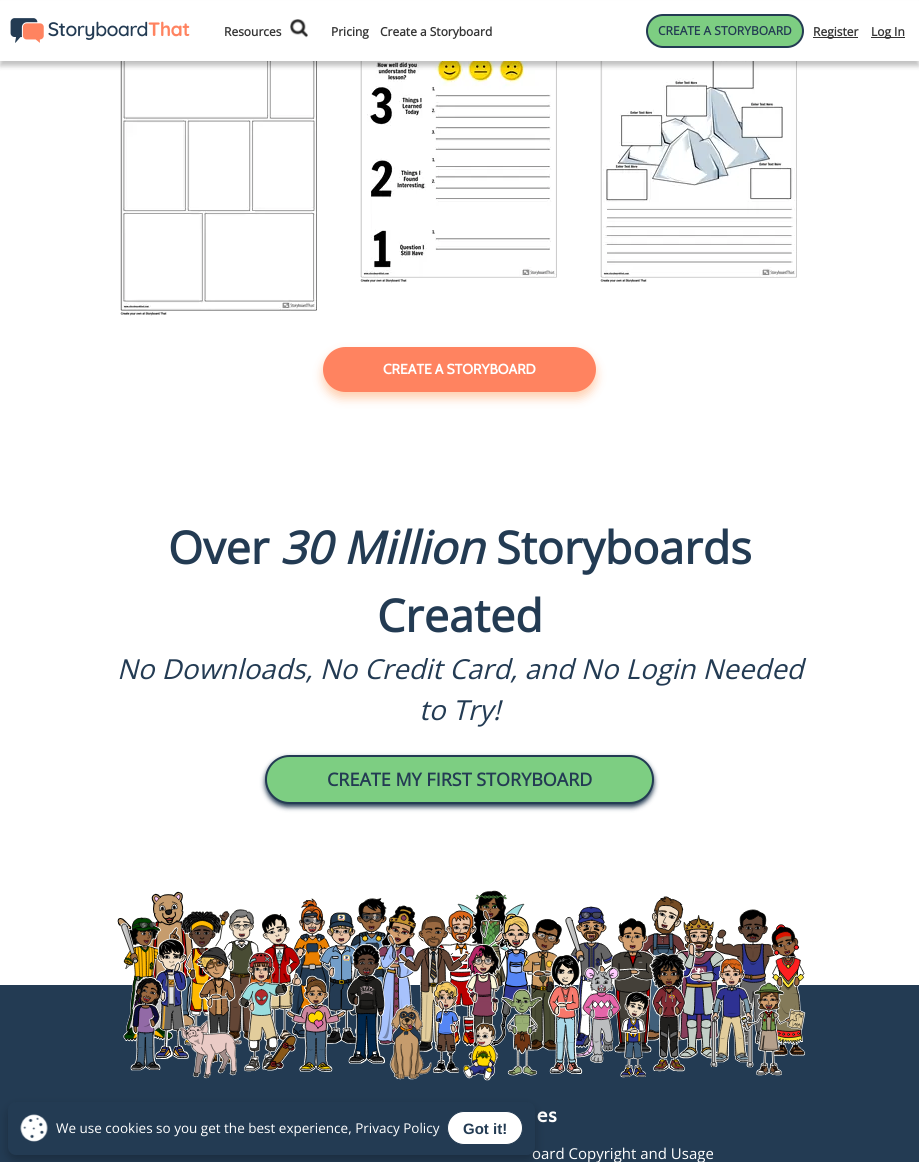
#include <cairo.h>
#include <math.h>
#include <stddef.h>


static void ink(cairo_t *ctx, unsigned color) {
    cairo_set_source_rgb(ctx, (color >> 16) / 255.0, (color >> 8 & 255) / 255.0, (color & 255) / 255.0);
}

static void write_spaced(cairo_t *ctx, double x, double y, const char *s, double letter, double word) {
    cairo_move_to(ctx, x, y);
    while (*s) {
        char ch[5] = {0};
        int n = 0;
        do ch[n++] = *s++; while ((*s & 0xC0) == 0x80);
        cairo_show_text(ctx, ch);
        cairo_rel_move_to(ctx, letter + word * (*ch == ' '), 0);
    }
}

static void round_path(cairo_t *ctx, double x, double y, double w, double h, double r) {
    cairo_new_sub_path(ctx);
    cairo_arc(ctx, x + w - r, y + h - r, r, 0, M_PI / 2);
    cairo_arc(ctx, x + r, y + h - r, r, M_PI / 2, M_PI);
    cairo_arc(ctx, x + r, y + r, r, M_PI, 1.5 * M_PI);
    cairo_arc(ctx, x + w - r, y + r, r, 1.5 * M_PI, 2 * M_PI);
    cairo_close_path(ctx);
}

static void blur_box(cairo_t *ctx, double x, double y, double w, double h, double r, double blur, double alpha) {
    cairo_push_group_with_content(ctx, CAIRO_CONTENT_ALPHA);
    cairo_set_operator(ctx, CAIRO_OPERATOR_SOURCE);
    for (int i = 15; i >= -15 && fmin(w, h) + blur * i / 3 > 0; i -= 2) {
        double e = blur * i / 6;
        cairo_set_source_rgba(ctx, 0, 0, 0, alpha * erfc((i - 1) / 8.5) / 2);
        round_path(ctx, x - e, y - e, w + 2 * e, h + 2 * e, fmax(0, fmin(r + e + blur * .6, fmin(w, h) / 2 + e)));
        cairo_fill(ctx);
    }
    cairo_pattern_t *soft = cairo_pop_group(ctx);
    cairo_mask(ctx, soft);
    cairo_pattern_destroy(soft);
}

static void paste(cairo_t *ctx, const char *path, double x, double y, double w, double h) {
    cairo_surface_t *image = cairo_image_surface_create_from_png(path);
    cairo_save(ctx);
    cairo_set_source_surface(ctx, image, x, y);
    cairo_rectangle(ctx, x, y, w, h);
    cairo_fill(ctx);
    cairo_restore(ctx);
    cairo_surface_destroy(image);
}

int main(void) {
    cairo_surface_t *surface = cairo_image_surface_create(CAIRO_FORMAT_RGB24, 919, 1162);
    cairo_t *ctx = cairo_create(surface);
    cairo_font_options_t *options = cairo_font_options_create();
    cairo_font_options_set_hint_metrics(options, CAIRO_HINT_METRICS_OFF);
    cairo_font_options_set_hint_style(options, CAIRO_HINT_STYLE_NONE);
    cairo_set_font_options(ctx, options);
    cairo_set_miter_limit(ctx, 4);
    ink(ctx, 0xFFFFFF);
    cairo_paint(ctx);
    paste(ctx, "media/3.png", 120, 61, 197, 255);
    paste(ctx, "media/4.png", 360, 61, 197, 222);
    paste(ctx, "media/5.png", 600, 61, 197, 222);
    ink(ctx, 0x000000);
    blur_box(ctx, 0, 5, 919, 61, 0, 2.5, 0.24);
    ink(ctx, 0xFFFFFF);
    cairo_rectangle(ctx, 0, 1, 919, 60);
    cairo_fill(ctx);
    paste(ctx, "media/1.png", 10, 18, 180, 25);
    cairo_select_font_face(ctx, "Open Sans", CAIRO_FONT_SLANT_NORMAL, CAIRO_FONT_WEIGHT_BOLD);
    cairo_set_font_size(ctx, 12);
    ink(ctx, 0x333333);
    cairo_move_to(ctx, 224, 36);
    cairo_show_text(ctx, "Resources");
    paste(ctx, "media/2.png", 290, 19, 18, 19);
    cairo_move_to(ctx, 331, 36);
    cairo_show_text(ctx, "Pricing");
    cairo_move_to(ctx, 380, 36);
    cairo_show_text(ctx, "Create a Storyboard");
    ink(ctx, 0x7DCE82);
    round_path(ctx, 647, 15, 156, 32, 16);
    cairo_fill_preserve(ctx);
    ink(ctx, 0x233B53);
    cairo_stroke(ctx);
    cairo_move_to(ctx, 658, 35);
    cairo_show_text(ctx, "CREATE A STORYBOARD");
    ink(ctx, 0x333333);
    cairo_rectangle(ctx, 813, 37, 45, 1);
    cairo_fill(ctx);
    cairo_move_to(ctx, 813, 36);
    cairo_show_text(ctx, "Register");
    cairo_rectangle(ctx, 871, 37, 34, 1);
    cairo_fill(ctx);
    cairo_move_to(ctx, 871, 36);
    cairo_show_text(ctx, "Log In");
    ink(ctx, 0xFF7D26);
    blur_box(ctx, 323, 353, 273, 45, 22.5, 5, 0.37);
    ink(ctx, 0xFF8360);
    round_path(ctx, 323, 347, 273, 45, 22.5);
    cairo_fill(ctx);
    cairo_select_font_face(ctx, "Cabin", CAIRO_FONT_SLANT_NORMAL, CAIRO_FONT_WEIGHT_BOLD);
    cairo_set_font_size(ctx, 14);
    ink(ctx, 0xFFFFFF);
    cairo_move_to(ctx, 383, 374);
    cairo_show_text(ctx, "CREATE A STORYBOARD");
    cairo_select_font_face(ctx, "Open Sans", CAIRO_FONT_SLANT_NORMAL, CAIRO_FONT_WEIGHT_BOLD);
    cairo_set_font_size(ctx, 45);
    ink(ctx, 0x233B53);
    cairo_move_to(ctx, 168, 564);
    cairo_show_text(ctx, "Over");
    cairo_select_font_face(ctx, "Open Sans", CAIRO_FONT_SLANT_ITALIC, CAIRO_FONT_WEIGHT_BOLD);
    cairo_move_to(ctx, 280, 564);
    cairo_show_text(ctx, "30 Million");
    cairo_select_font_face(ctx, "Open Sans", CAIRO_FONT_SLANT_NORMAL, CAIRO_FONT_WEIGHT_BOLD);
    cairo_move_to(ctx, 496, 564);
    cairo_show_text(ctx, "Storyboards");
    cairo_move_to(ctx, 377, 632);
    cairo_show_text(ctx, "Created");
    cairo_select_font_face(ctx, "Open Sans", CAIRO_FONT_SLANT_ITALIC, CAIRO_FONT_WEIGHT_NORMAL);
    cairo_set_font_size(ctx, 27.6);
    cairo_move_to(ctx, 117, 679);
    cairo_show_text(ctx, "No Downloads, No Credit Card, and No Login Needed");
    cairo_move_to(ctx, 419, 720);
    cairo_show_text(ctx, "to Try!");
    ink(ctx, 0x233B53);
    blur_box(ctx, 265, 758, 389, 49, 24.5, 2.5, 1);
    ink(ctx, 0x7DCE82);
    round_path(ctx, 266, 756, 387, 47, 23.5);
    cairo_fill_preserve(ctx);
    ink(ctx, 0x233B53);
    cairo_stroke(ctx);
    cairo_select_font_face(ctx, "Open Sans", CAIRO_FONT_SLANT_NORMAL, CAIRO_FONT_WEIGHT_BOLD);
    cairo_set_font_size(ctx, 18);
    cairo_move_to(ctx, 327, 786);
    cairo_show_text(ctx, "CREATE MY FIRST STORYBOARD");
    cairo_rectangle(ctx, 0, 985, 919, 177);
    cairo_fill(ctx);
    paste(ctx, "media/6.png", 117, 890, 689, 191);
    cairo_select_font_face(ctx, "Cabin", CAIRO_FONT_SLANT_NORMAL, CAIRO_FONT_WEIGHT_BOLD);
    cairo_set_font_size(ctx, 20);
    ink(ctx, 0xFFFFFF);
    write_spaced(ctx, 537, 1122, "es", 1, 0);
    cairo_select_font_face(ctx, "Open Sans", CAIRO_FONT_SLANT_NORMAL, CAIRO_FONT_WEIGHT_NORMAL);
    cairo_set_font_size(ctx, 15);
    cairo_move_to(ctx, 532, 1159);
    cairo_show_text(ctx, "oard Copyright and Usage");
    ink(ctx, 0x000000);
    blur_box(ctx, 8, 1107, 527, 53, 8, 5, 0.25);
    ink(ctx, 0x233B53);
    round_path(ctx, 8, 1102, 527, 53, 8);
    cairo_fill(ctx);
    paste(ctx, "media/7.png", 20, 1114, 28, 28);
    cairo_set_font_size(ctx, 13.5);
    ink(ctx, 0xFFFFFF);
    cairo_move_to(ctx, 56, 1133);
    cairo_show_text(ctx, "We use cookies so you get the best experience, Privacy Policy");
    round_path(ctx, 447.5, 1111.5, 75, 33, 16.5);
    cairo_fill_preserve(ctx);
    ink(ctx, 0x233B53);
    cairo_set_line_width(ctx, 1);
    cairo_stroke(ctx);
    cairo_select_font_face(ctx, "Liberation Sans", CAIRO_FONT_SLANT_NORMAL, CAIRO_FONT_WEIGHT_BOLD);
    cairo_set_font_size(ctx, 15);
    cairo_move_to(ctx, 463, 1134);
    cairo_show_text(ctx, "Got it!");
    cairo_surface_write_to_png(surface, "image.png");
    cairo_font_options_destroy(options);
    cairo_destroy(ctx);
    cairo_surface_destroy(surface);
    return 0;
}
